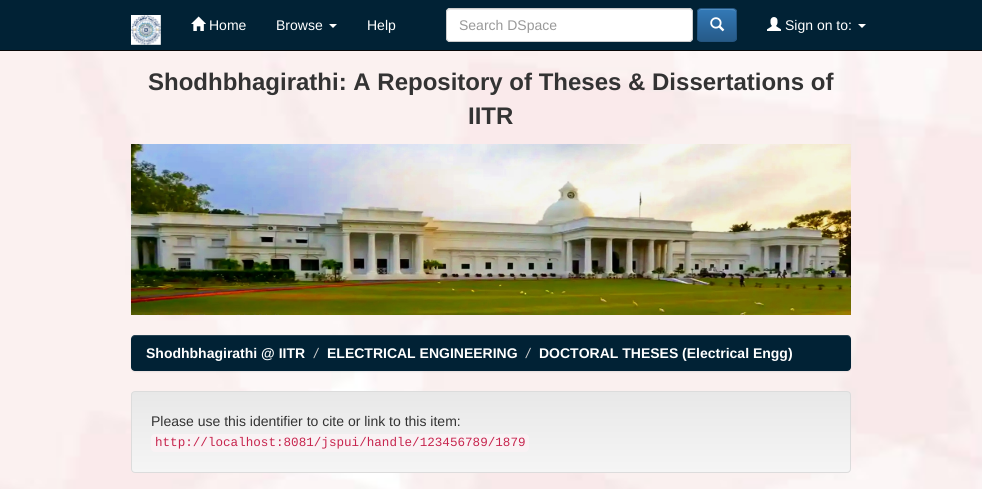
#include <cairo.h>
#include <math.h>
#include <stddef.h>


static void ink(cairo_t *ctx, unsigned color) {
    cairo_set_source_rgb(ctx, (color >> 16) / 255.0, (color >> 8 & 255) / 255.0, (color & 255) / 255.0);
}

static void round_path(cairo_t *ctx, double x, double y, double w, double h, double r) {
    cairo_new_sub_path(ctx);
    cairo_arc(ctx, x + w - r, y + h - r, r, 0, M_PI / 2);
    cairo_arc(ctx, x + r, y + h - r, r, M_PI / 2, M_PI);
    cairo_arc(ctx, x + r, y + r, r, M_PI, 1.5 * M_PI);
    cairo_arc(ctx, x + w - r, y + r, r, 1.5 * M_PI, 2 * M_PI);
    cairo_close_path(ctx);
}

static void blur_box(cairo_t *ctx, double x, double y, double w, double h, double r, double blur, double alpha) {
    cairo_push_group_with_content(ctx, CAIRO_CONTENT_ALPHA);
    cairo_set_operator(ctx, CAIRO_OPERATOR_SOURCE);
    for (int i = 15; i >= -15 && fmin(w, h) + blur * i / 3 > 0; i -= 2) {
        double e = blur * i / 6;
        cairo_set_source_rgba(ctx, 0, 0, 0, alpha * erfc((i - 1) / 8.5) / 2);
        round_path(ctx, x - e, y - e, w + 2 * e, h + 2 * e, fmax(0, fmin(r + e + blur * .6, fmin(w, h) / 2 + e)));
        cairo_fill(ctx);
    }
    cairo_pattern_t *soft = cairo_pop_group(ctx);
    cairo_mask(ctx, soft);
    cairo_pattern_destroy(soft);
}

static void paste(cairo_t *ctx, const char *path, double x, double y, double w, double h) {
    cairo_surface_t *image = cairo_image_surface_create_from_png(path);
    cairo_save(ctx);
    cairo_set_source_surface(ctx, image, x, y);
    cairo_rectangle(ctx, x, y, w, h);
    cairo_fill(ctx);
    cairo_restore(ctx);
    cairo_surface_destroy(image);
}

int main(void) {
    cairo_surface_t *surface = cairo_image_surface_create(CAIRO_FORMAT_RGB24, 982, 489);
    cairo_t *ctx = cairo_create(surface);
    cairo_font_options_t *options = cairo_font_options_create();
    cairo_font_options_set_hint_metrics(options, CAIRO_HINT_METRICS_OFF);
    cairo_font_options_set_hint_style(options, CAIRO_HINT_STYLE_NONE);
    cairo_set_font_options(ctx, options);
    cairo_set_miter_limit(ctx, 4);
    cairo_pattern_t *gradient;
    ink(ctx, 0xFFFFFF);
    cairo_paint(ctx);
    paste(ctx, "media/1.png", 0, 51, 982, 438);
    ink(ctx, 0x012235);
    cairo_rectangle(ctx, 0, 0, 982, 50);
    cairo_fill(ctx);
    ink(ctx, 0x080808);
    cairo_rectangle(ctx, 0, 50, 982, 1);
    cairo_fill(ctx);
    paste(ctx, "media/2.png", 131, 15, 30, 30);
    paste(ctx, "media/3.png", 191, 16, 15, 15);
    cairo_select_font_face(ctx, "Liberation Sans", CAIRO_FONT_SLANT_NORMAL, CAIRO_FONT_WEIGHT_NORMAL);
    cairo_set_font_size(ctx, 14);
    ink(ctx, 0xFFFFFF);
    cairo_move_to(ctx, 209, 30);
    cairo_show_text(ctx, "Home");
    cairo_move_to(ctx, 276, 30);
    cairo_show_text(ctx, "Browse");
    cairo_new_path(ctx);
    cairo_move_to(ctx, 329, 24);
    cairo_line_to(ctx, 337, 24);
    cairo_line_to(ctx, 333, 28);
    cairo_close_path(ctx);
    cairo_fill(ctx);
    cairo_move_to(ctx, 367, 30);
    cairo_show_text(ctx, "Help");
    round_path(ctx, 446, 8, 247, 34, 4);
    cairo_fill(ctx);
    ink(ctx, 0xECECEC);
    cairo_new_path(ctx);
    cairo_move_to(ctx, 450, 10);
    cairo_line_to(ctx, 690, 10);
    cairo_line_to(ctx, 692, 11);
    cairo_line_to(ctx, 692, 13);
    cairo_curve_to(ctx, 692, 11, 691, 9, 689, 9);
    cairo_line_to(ctx, 450, 9);
    cairo_curve_to(ctx, 448, 9, 447, 11, 447, 13);
    cairo_curve_to(ctx, 447, 11, 448, 10, 450, 10);
    cairo_close_path(ctx);
    cairo_fill(ctx);
    round_path(ctx, 446.5, 8.5, 246, 33, 3.5);
    ink(ctx, 0xCCCCCC);
    cairo_set_line_width(ctx, 1);
    cairo_stroke(ctx);
    ink(ctx, 0x999999);
    cairo_move_to(ctx, 459, 30);
    cairo_show_text(ctx, "Search DSpace");
    cairo_save(ctx);
    round_path(ctx, 697, 8, 40, 34, 4);
    cairo_clip(ctx);
    gradient = cairo_pattern_create_linear(717, 9, 717, 41);
    cairo_pattern_add_color_stop_rgba(gradient, 0, 0.2, 0.478, 0.718, 1);
    cairo_pattern_add_color_stop_rgba(gradient, 1, 0.149, 0.353, 0.533, 1);
    cairo_set_source(ctx, gradient);
    cairo_pattern_destroy(gradient);
    cairo_rectangle(ctx, 697, 9, 40, 32);
    cairo_fill(ctx);
    cairo_restore(ctx);
    ink(ctx, 0x528EC1);
    cairo_new_path(ctx);
    cairo_move_to(ctx, 701, 10);
    cairo_line_to(ctx, 728, 10);
    cairo_curve_to(ctx, 733.5, 10, 735.5, 10.5, 736, 12.5);
    cairo_curve_to(ctx, 736, 7.5, 731.5, 9, 727.5, 9);
    cairo_line_to(ctx, 706.5, 9);
    cairo_curve_to(ctx, 703, 9, 698, 8, 698, 12.5);
    cairo_curve_to(ctx, 698.5, 11, 699.5, 10, 701, 10);
    cairo_close_path(ctx);
    cairo_fill(ctx);
    round_path(ctx, 697.5, 8.5, 39, 33, 3.5);
    ink(ctx, 0x245580);
    cairo_stroke(ctx);
    paste(ctx, "media/4.png", 710, 17, 15, 15);
    paste(ctx, "media/5.png", 767, 17, 14, 14);
    ink(ctx, 0xFFFFFF);
    cairo_move_to(ctx, 785, 30);
    cairo_show_text(ctx, "Sign on to:");
    cairo_new_path(ctx);
    cairo_move_to(ctx, 858, 24);
    cairo_line_to(ctx, 866, 24);
    cairo_line_to(ctx, 862, 28);
    cairo_close_path(ctx);
    cairo_fill(ctx);
    cairo_select_font_face(ctx, "Liberation Sans", CAIRO_FONT_SLANT_NORMAL, CAIRO_FONT_WEIGHT_BOLD);
    cairo_set_font_size(ctx, 24);
    ink(ctx, 0x333333);
    cairo_move_to(ctx, 148, 90);
    cairo_show_text(ctx, "Shodhbhagirathi: A Repository of Theses & Dissertations of");
    cairo_move_to(ctx, 468, 124);
    cairo_show_text(ctx, "IITR");
    paste(ctx, "media/6.png", 131, 144, 720, 171);
    ink(ctx, 0x000000);
    blur_box(ctx, 131, 336, 720, 36, 4, 0.5, 0.07);
    ink(ctx, 0x012235);
    round_path(ctx, 131, 335, 720, 36, 4);
    cairo_fill(ctx);
    cairo_set_source_rgba(ctx, 1, 1, 1, 0.15);
    cairo_new_path(ctx);
    cairo_move_to(ctx, 135, 336);
    cairo_line_to(ctx, 847, 336);
    cairo_curve_to(ctx, 849, 336, 851, 338, 851, 340);
    cairo_curve_to(ctx, 851, 337, 850, 335, 847, 335);
    cairo_line_to(ctx, 135, 335);
    cairo_line_to(ctx, 132, 336);
    cairo_line_to(ctx, 131, 337);
    cairo_line_to(ctx, 131, 340);
    cairo_curve_to(ctx, 131, 338, 133, 336, 135, 336);
    cairo_close_path(ctx);
    cairo_fill(ctx);
    cairo_set_font_size(ctx, 14);
    ink(ctx, 0xFFFFFF);
    cairo_move_to(ctx, 146, 358);
    cairo_show_text(ctx, "Shodhbhagirathi @ IITR");
    cairo_select_font_face(ctx, "Liberation Sans", CAIRO_FONT_SLANT_ITALIC, CAIRO_FONT_WEIGHT_NORMAL);
    ink(ctx, 0xCCCCCC);
    cairo_move_to(ctx, 314, 358);
    cairo_show_text(ctx, "/");
    cairo_select_font_face(ctx, "Liberation Sans", CAIRO_FONT_SLANT_NORMAL, CAIRO_FONT_WEIGHT_BOLD);
    ink(ctx, 0xFFFFFF);
    cairo_move_to(ctx, 327, 358);
    cairo_show_text(ctx, "ELECTRICAL ENGINEERING");
    cairo_select_font_face(ctx, "Liberation Sans", CAIRO_FONT_SLANT_ITALIC, CAIRO_FONT_WEIGHT_NORMAL);
    ink(ctx, 0xCCCCCC);
    cairo_move_to(ctx, 526, 358);
    cairo_show_text(ctx, "/");
    cairo_select_font_face(ctx, "Liberation Sans", CAIRO_FONT_SLANT_NORMAL, CAIRO_FONT_WEIGHT_BOLD);
    ink(ctx, 0xFFFFFF);
    cairo_move_to(ctx, 539, 358);
    cairo_show_text(ctx, "DOCTORAL THESES (Electrical Engg)");
    cairo_save(ctx);
    round_path(ctx, 131, 391, 720, 82, 4);
    cairo_clip(ctx);
    gradient = cairo_pattern_create_linear(491, 392, 491, 472);
    cairo_pattern_add_color_stop_rgba(gradient, 0, 0.91, 0.91, 0.91, 1);
    cairo_pattern_add_color_stop_rgba(gradient, 1, 0.961, 0.961, 0.961, 1);
    cairo_set_source(ctx, gradient);
    cairo_pattern_destroy(gradient);
    cairo_rectangle(ctx, 131, 392, 720, 80);
    cairo_fill(ctx);
    cairo_restore(ctx);
    round_path(ctx, 131.5, 391.5, 719, 81, 3.5);
    ink(ctx, 0xDCDCDC);
    cairo_stroke(ctx);
    cairo_select_font_face(ctx, "Liberation Sans", CAIRO_FONT_SLANT_NORMAL, CAIRO_FONT_WEIGHT_NORMAL);
    ink(ctx, 0x333333);
    cairo_move_to(ctx, 151, 426);
    cairo_show_text(ctx, "Please use this identifier to cite or link to this item:");
    ink(ctx, 0xF9F2F4);
    round_path(ctx, 151, 434, 378, 18, 4);
    cairo_fill(ctx);
    cairo_select_font_face(ctx, "Liberation Mono", CAIRO_FONT_SLANT_NORMAL, CAIRO_FONT_WEIGHT_NORMAL);
    cairo_set_font_size(ctx, 12.6);
    ink(ctx, 0xC7254E);
    cairo_move_to(ctx, 155, 446);
    cairo_show_text(ctx, "http://localhost:8081/jspui/handle/123456789/1879");
    cairo_surface_write_to_png(surface, "image.png");
    cairo_font_options_destroy(options);
    cairo_destroy(ctx);
    cairo_surface_destroy(surface);
    return 0;
}
